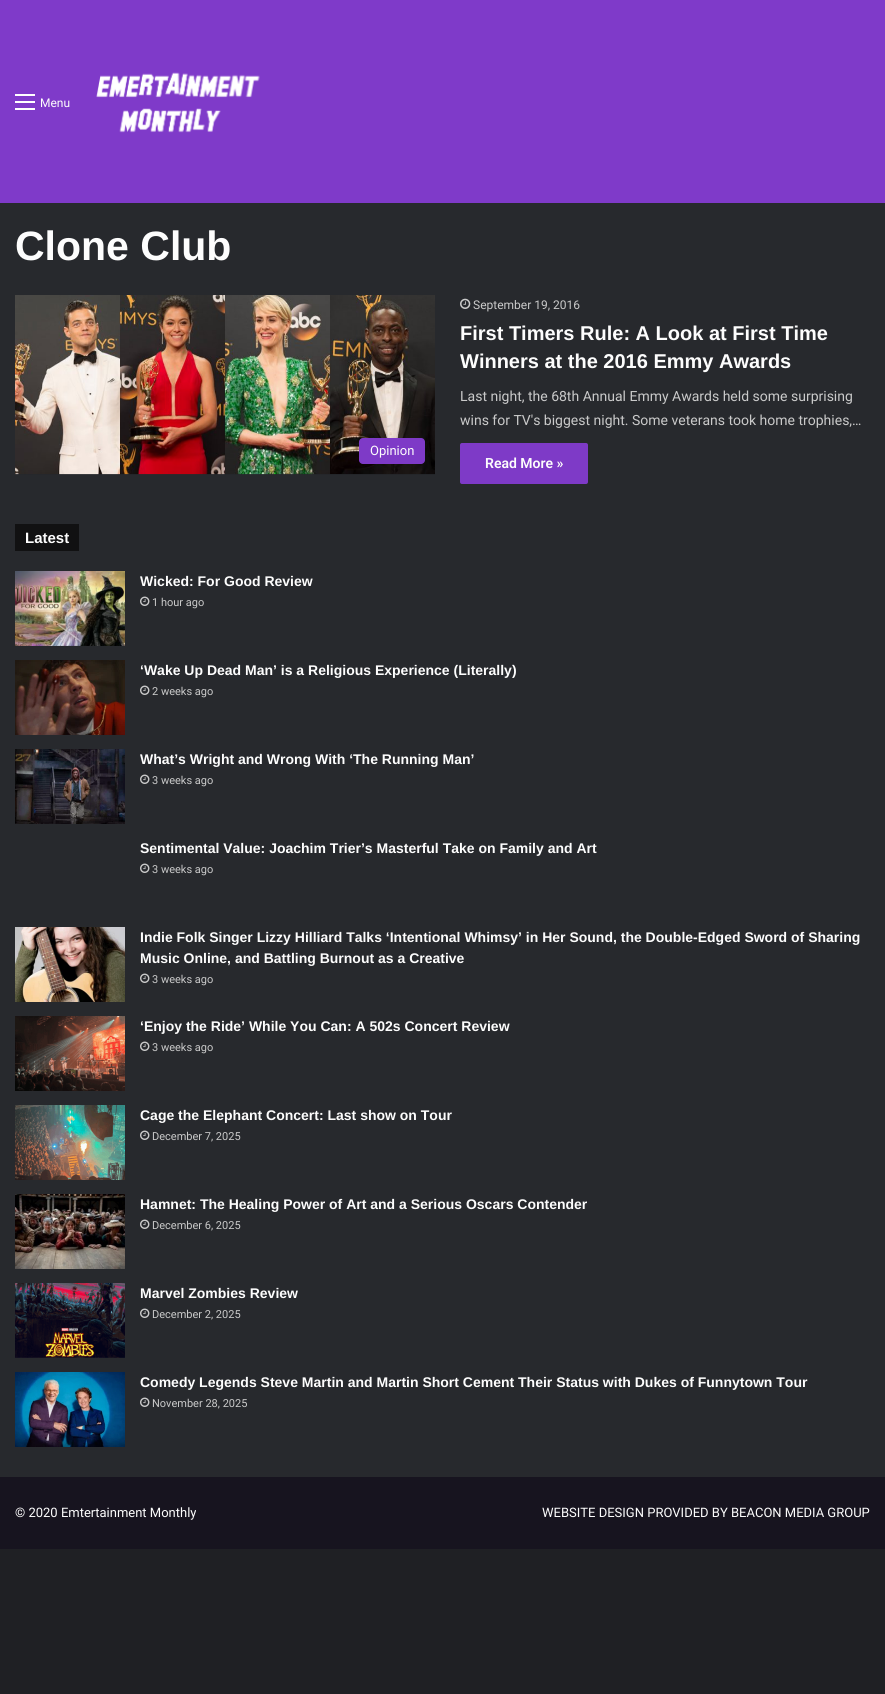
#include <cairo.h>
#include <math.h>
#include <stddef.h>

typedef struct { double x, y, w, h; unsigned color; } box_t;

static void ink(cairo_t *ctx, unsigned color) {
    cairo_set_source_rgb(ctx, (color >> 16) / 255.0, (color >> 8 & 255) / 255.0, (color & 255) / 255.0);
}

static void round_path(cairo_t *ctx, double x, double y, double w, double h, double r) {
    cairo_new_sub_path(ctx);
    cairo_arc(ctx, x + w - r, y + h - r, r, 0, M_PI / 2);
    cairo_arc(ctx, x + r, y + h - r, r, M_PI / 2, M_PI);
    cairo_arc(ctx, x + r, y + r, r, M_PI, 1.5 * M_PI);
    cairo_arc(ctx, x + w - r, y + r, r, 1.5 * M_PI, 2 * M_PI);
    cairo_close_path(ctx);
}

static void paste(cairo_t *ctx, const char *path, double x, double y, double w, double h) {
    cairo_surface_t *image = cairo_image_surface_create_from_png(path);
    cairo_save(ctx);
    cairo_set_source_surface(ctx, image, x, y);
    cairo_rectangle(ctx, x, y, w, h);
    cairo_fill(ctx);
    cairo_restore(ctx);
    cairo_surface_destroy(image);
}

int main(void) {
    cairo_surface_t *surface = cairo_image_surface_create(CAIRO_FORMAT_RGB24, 885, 1694);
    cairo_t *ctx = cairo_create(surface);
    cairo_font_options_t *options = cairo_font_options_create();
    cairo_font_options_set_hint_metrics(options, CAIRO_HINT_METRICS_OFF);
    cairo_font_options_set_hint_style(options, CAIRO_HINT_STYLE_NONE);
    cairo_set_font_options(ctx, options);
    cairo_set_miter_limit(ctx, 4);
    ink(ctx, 0x1F2024);
    cairo_paint(ctx);
    {
        static const box_t items[] = {
            {0, 203, 885, 1274, 0x27292D},
            {0, 0, 885, 203, 0x7F3AC9},
            {15, 101, 20, 2, 0xFFFFFF},
            {15, 94, 20, 2, 0xFFFFFF},
            {15, 108, 20, 2, 0xFFFFFF},
        };
        for (size_t i = 0; i < sizeof items / sizeof *items; i++) {
            ink(ctx, items[i].color);
            cairo_rectangle(ctx, items[i].x, items[i].y, items[i].w, items[i].h);
            cairo_fill(ctx);
        }
    }
    cairo_select_font_face(ctx, "Roboto", CAIRO_FONT_SLANT_NORMAL, CAIRO_FONT_WEIGHT_NORMAL);
    cairo_set_font_size(ctx, 12);
    ink(ctx, 0xFDFDFD);
    cairo_move_to(ctx, 40, 107);
    cairo_show_text(ctx, "Menu");
    paste(ctx, "media/1.png", 96, 72, 164, 61);
    cairo_select_font_face(ctx, "Liberation Sans", CAIRO_FONT_SLANT_NORMAL, CAIRO_FONT_WEIGHT_BOLD);
    cairo_set_font_size(ctx, 41);
    cairo_move_to(ctx, 15, 260);
    cairo_show_text(ctx, "Clone Club");
    paste(ctx, "media/2.png", 15, 295, 420, 180);
    ink(ctx, 0x7E3AC7);
    round_path(ctx, 359, 438, 66, 26, 4);
    cairo_fill(ctx);
    cairo_select_font_face(ctx, "Roboto", CAIRO_FONT_SLANT_NORMAL, CAIRO_FONT_WEIGHT_NORMAL);
    cairo_set_font_size(ctx, 13);
    ink(ctx, 0xFDFDFD);
    cairo_move_to(ctx, 370, 455);
    cairo_show_text(ctx, "Opinion");
    paste(ctx, "media/3.png", 460, 298, 11, 11);
    cairo_set_font_size(ctx, 12);
    ink(ctx, 0xCACACA);
    cairo_move_to(ctx, 473, 309);
    cairo_show_text(ctx, "September 19, 2016");
    cairo_select_font_face(ctx, "Liberation Sans", CAIRO_FONT_SLANT_NORMAL, CAIRO_FONT_WEIGHT_BOLD);
    cairo_set_font_size(ctx, 20);
    ink(ctx, 0xFDFDFD);
    cairo_move_to(ctx, 460, 340);
    cairo_show_text(ctx, "First Timers Rule: A Look at First Time");
    cairo_move_to(ctx, 460, 368);
    cairo_show_text(ctx, "Winners at the 2016 Emmy Awards");
    cairo_select_font_face(ctx, "Roboto", CAIRO_FONT_SLANT_NORMAL, CAIRO_FONT_WEIGHT_NORMAL);
    cairo_set_font_size(ctx, 14);
    ink(ctx, 0xCACACA);
    cairo_move_to(ctx, 460, 401);
    cairo_show_text(ctx, "Last night, the 68th Annual Emmy Awards held some surprising");
    cairo_move_to(ctx, 460, 425);
    cairo_show_text(ctx, "wins for TV's biggest night. Some veterans took home trophies,…");
    ink(ctx, 0x7E3AC7);
    round_path(ctx, 460, 443, 128, 41, 2);
    cairo_fill(ctx);
    cairo_select_font_face(ctx, "Roboto SemiBold", CAIRO_FONT_SLANT_NORMAL, CAIRO_FONT_WEIGHT_NORMAL);
    ink(ctx, 0xFDFDFD);
    cairo_move_to(ctx, 485, 468);
    cairo_show_text(ctx, "Read More »");
    ink(ctx, 0x111112);
    cairo_rectangle(ctx, 15, 524, 64, 27);
    cairo_fill(ctx);
    cairo_select_font_face(ctx, "Liberation Sans", CAIRO_FONT_SLANT_NORMAL, CAIRO_FONT_WEIGHT_BOLD);
    cairo_set_font_size(ctx, 15);
    ink(ctx, 0xFDFDFD);
    cairo_move_to(ctx, 25, 543);
    cairo_show_text(ctx, "Latest");
    paste(ctx, "media/4.png", 15, 571, 110, 75);
    cairo_set_font_size(ctx, 14);
    cairo_move_to(ctx, 140, 586);
    cairo_show_text(ctx, "Wicked: For Good Review");
    paste(ctx, "media/5.png", 140, 596, 10, 10);
    cairo_select_font_face(ctx, "Roboto", CAIRO_FONT_SLANT_NORMAL, CAIRO_FONT_WEIGHT_NORMAL);
    cairo_set_font_size(ctx, 11);
    ink(ctx, 0xCACACA);
    cairo_move_to(ctx, 152, 606);
    cairo_show_text(ctx, "1 hour ago");
    paste(ctx, "media/6.png", 15, 660, 110, 75);
    cairo_select_font_face(ctx, "Liberation Sans", CAIRO_FONT_SLANT_NORMAL, CAIRO_FONT_WEIGHT_BOLD);
    cairo_set_font_size(ctx, 14);
    ink(ctx, 0xFDFDFD);
    cairo_move_to(ctx, 140, 675);
    cairo_show_text(ctx, "‘Wake Up Dead Man’ is a Religious Experience (Literally)");
    paste(ctx, "media/5.png", 140, 685, 10, 10);
    cairo_select_font_face(ctx, "Roboto", CAIRO_FONT_SLANT_NORMAL, CAIRO_FONT_WEIGHT_NORMAL);
    cairo_set_font_size(ctx, 11);
    ink(ctx, 0xCACACA);
    cairo_move_to(ctx, 152, 695);
    cairo_show_text(ctx, "2 weeks ago");
    paste(ctx, "media/7.png", 15, 749, 110, 75);
    cairo_select_font_face(ctx, "Liberation Sans", CAIRO_FONT_SLANT_NORMAL, CAIRO_FONT_WEIGHT_BOLD);
    cairo_set_font_size(ctx, 14);
    ink(ctx, 0xFDFDFD);
    cairo_move_to(ctx, 140, 764);
    cairo_show_text(ctx, "What’s Wright and Wrong With ‘The Running Man’");
    paste(ctx, "media/5.png", 140, 774, 10, 10);
    cairo_select_font_face(ctx, "Roboto", CAIRO_FONT_SLANT_NORMAL, CAIRO_FONT_WEIGHT_NORMAL);
    cairo_set_font_size(ctx, 11);
    ink(ctx, 0xCACACA);
    cairo_move_to(ctx, 152, 784);
    cairo_show_text(ctx, "3 weeks ago");
    cairo_select_font_face(ctx, "Liberation Sans", CAIRO_FONT_SLANT_NORMAL, CAIRO_FONT_WEIGHT_BOLD);
    cairo_set_font_size(ctx, 14);
    ink(ctx, 0xFDFDFD);
    cairo_move_to(ctx, 140, 853);
    cairo_show_text(ctx, "Sentimental Value: Joachim Trier’s Masterful Take on Family and Art");
    paste(ctx, "media/5.png", 140, 863, 10, 10);
    cairo_select_font_face(ctx, "Roboto", CAIRO_FONT_SLANT_NORMAL, CAIRO_FONT_WEIGHT_NORMAL);
    cairo_set_font_size(ctx, 11);
    ink(ctx, 0xCACACA);
    cairo_move_to(ctx, 152, 873);
    cairo_show_text(ctx, "3 weeks ago");
    paste(ctx, "media/8.png", 15, 927, 110, 75);
    cairo_select_font_face(ctx, "Liberation Sans", CAIRO_FONT_SLANT_NORMAL, CAIRO_FONT_WEIGHT_BOLD);
    cairo_set_font_size(ctx, 14);
    ink(ctx, 0xFDFDFD);
    cairo_move_to(ctx, 140, 942);
    cairo_show_text(ctx, "Indie Folk Singer Lizzy Hilliard Talks ‘Intentional Whimsy’ in Her Sound, the Double-Edged Sword of Sharing");
    cairo_move_to(ctx, 140, 963);
    cairo_show_text(ctx, "Music Online, and Battling Burnout as a Creative");
    paste(ctx, "media/5.png", 140, 973, 10, 10);
    cairo_select_font_face(ctx, "Roboto", CAIRO_FONT_SLANT_NORMAL, CAIRO_FONT_WEIGHT_NORMAL);
    cairo_set_font_size(ctx, 11);
    ink(ctx, 0xCACACA);
    cairo_move_to(ctx, 152, 983);
    cairo_show_text(ctx, "3 weeks ago");
    paste(ctx, "media/9.png", 15, 1016, 110, 75);
    cairo_select_font_face(ctx, "Liberation Sans", CAIRO_FONT_SLANT_NORMAL, CAIRO_FONT_WEIGHT_BOLD);
    cairo_set_font_size(ctx, 14);
    ink(ctx, 0xFDFDFD);
    cairo_move_to(ctx, 140, 1031);
    cairo_show_text(ctx, "‘Enjoy the Ride’ While You Can: A 502s Concert Review");
    paste(ctx, "media/5.png", 140, 1041, 10, 10);
    cairo_select_font_face(ctx, "Roboto", CAIRO_FONT_SLANT_NORMAL, CAIRO_FONT_WEIGHT_NORMAL);
    cairo_set_font_size(ctx, 11);
    ink(ctx, 0xCACACA);
    cairo_move_to(ctx, 152, 1051);
    cairo_show_text(ctx, "3 weeks ago");
    paste(ctx, "media/10.png", 15, 1105, 110, 75);
    cairo_select_font_face(ctx, "Liberation Sans", CAIRO_FONT_SLANT_NORMAL, CAIRO_FONT_WEIGHT_BOLD);
    cairo_set_font_size(ctx, 14);
    ink(ctx, 0xFDFDFD);
    cairo_move_to(ctx, 140, 1120);
    cairo_show_text(ctx, "Cage the Elephant Concert: Last show on Tour");
    paste(ctx, "media/5.png", 140, 1130, 10, 10);
    cairo_select_font_face(ctx, "Roboto", CAIRO_FONT_SLANT_NORMAL, CAIRO_FONT_WEIGHT_NORMAL);
    cairo_set_font_size(ctx, 11);
    ink(ctx, 0xCACACA);
    cairo_move_to(ctx, 152, 1140);
    cairo_show_text(ctx, "December 7, 2025");
    paste(ctx, "media/11.png", 15, 1194, 110, 75);
    cairo_select_font_face(ctx, "Liberation Sans", CAIRO_FONT_SLANT_NORMAL, CAIRO_FONT_WEIGHT_BOLD);
    cairo_set_font_size(ctx, 14);
    ink(ctx, 0xFDFDFD);
    cairo_move_to(ctx, 140, 1209);
    cairo_show_text(ctx, "Hamnet: The Healing Power of Art and a Serious Oscars Contender");
    paste(ctx, "media/5.png", 140, 1219, 10, 10);
    cairo_select_font_face(ctx, "Roboto", CAIRO_FONT_SLANT_NORMAL, CAIRO_FONT_WEIGHT_NORMAL);
    cairo_set_font_size(ctx, 11);
    ink(ctx, 0xCACACA);
    cairo_move_to(ctx, 152, 1229);
    cairo_show_text(ctx, "December 6, 2025");
    paste(ctx, "media/12.png", 15, 1283, 110, 75);
    cairo_select_font_face(ctx, "Liberation Sans", CAIRO_FONT_SLANT_NORMAL, CAIRO_FONT_WEIGHT_BOLD);
    cairo_set_font_size(ctx, 14);
    ink(ctx, 0xFDFDFD);
    cairo_move_to(ctx, 140, 1298);
    cairo_show_text(ctx, "Marvel Zombies Review");
    paste(ctx, "media/5.png", 140, 1308, 10, 10);
    cairo_select_font_face(ctx, "Roboto", CAIRO_FONT_SLANT_NORMAL, CAIRO_FONT_WEIGHT_NORMAL);
    cairo_set_font_size(ctx, 11);
    ink(ctx, 0xCACACA);
    cairo_move_to(ctx, 152, 1318);
    cairo_show_text(ctx, "December 2, 2025");
    paste(ctx, "media/13.png", 15, 1372, 110, 75);
    cairo_select_font_face(ctx, "Liberation Sans", CAIRO_FONT_SLANT_NORMAL, CAIRO_FONT_WEIGHT_BOLD);
    cairo_set_font_size(ctx, 14);
    ink(ctx, 0xFDFDFD);
    cairo_move_to(ctx, 140, 1387);
    cairo_show_text(ctx, "Comedy Legends Steve Martin and Martin Short Cement Their Status with Dukes of Funnytown Tour");
    paste(ctx, "media/5.png", 140, 1397, 10, 10);
    cairo_select_font_face(ctx, "Roboto", CAIRO_FONT_SLANT_NORMAL, CAIRO_FONT_WEIGHT_NORMAL);
    cairo_set_font_size(ctx, 11);
    ink(ctx, 0xCACACA);
    cairo_move_to(ctx, 152, 1407);
    cairo_show_text(ctx, "November 28, 2025");
    ink(ctx, 0x17141F);
    cairo_rectangle(ctx, 0, 1477, 885, 72);
    cairo_fill(ctx);
    cairo_set_font_size(ctx, 13);
    ink(ctx, 0xFDFDFD);
    cairo_move_to(ctx, 15, 1517);
    cairo_show_text(ctx, "© 2020 Emtertainment Monthly");
    cairo_move_to(ctx, 542, 1517);
    cairo_show_text(ctx, "WEBSITE DESIGN PROVIDED BY BEACON MEDIA GROUP");
    cairo_surface_write_to_png(surface, "image.png");
    cairo_font_options_destroy(options);
    cairo_destroy(ctx);
    cairo_surface_destroy(surface);
    return 0;
}
